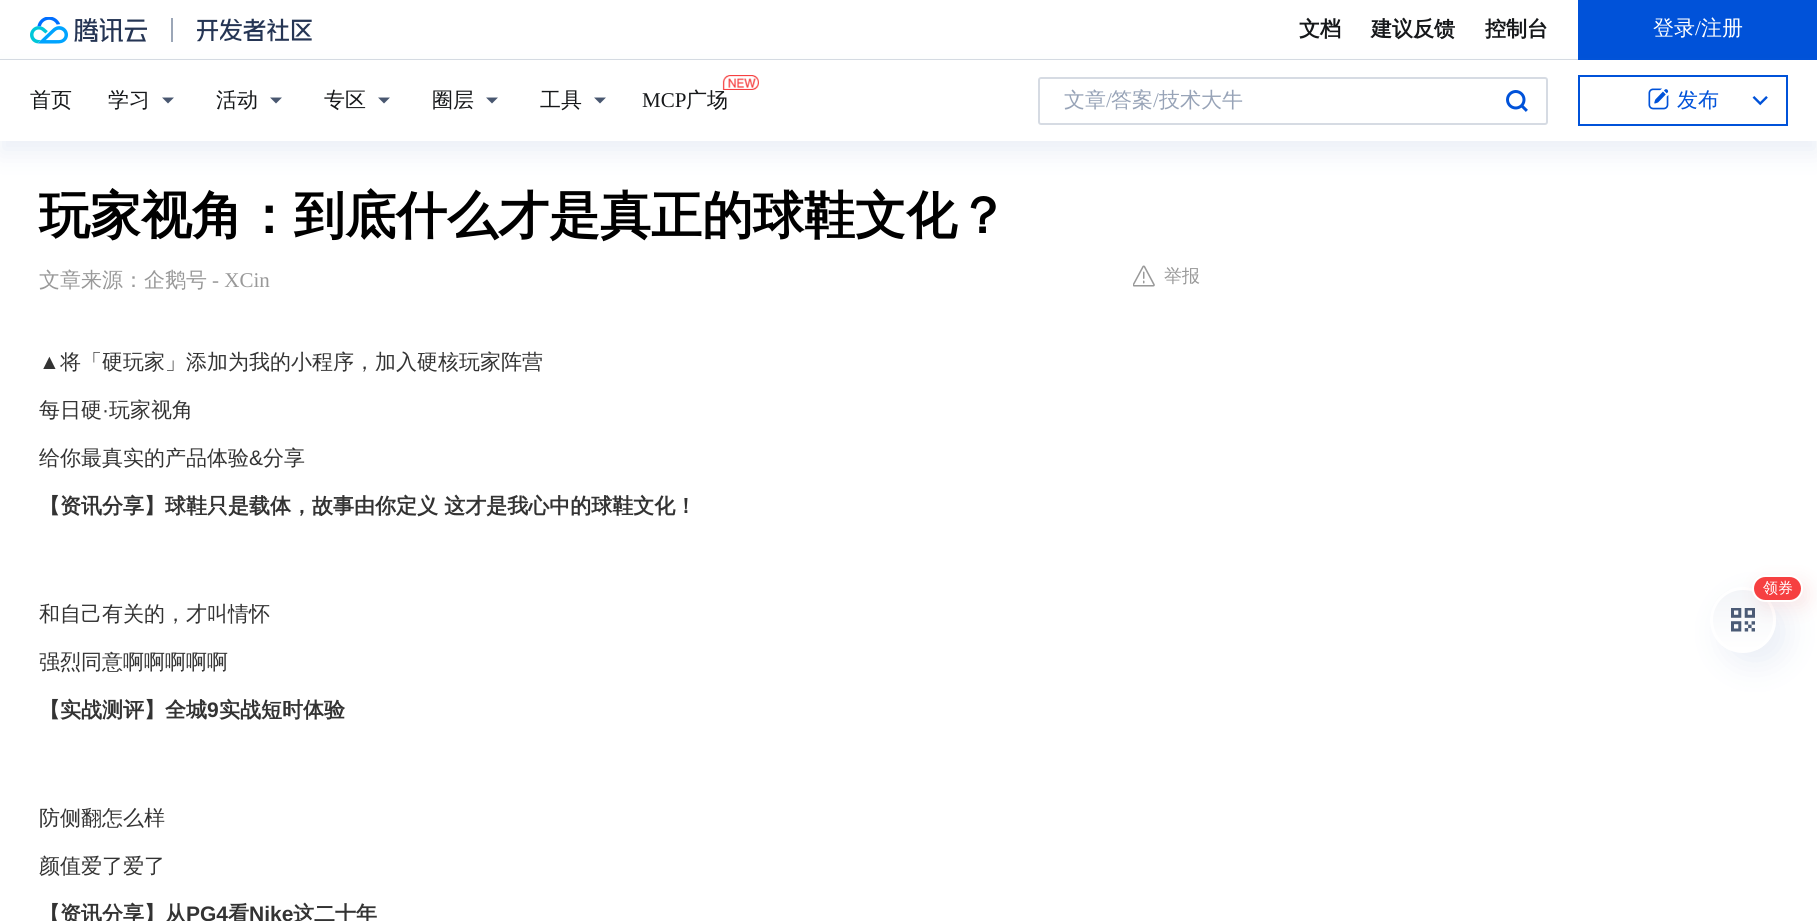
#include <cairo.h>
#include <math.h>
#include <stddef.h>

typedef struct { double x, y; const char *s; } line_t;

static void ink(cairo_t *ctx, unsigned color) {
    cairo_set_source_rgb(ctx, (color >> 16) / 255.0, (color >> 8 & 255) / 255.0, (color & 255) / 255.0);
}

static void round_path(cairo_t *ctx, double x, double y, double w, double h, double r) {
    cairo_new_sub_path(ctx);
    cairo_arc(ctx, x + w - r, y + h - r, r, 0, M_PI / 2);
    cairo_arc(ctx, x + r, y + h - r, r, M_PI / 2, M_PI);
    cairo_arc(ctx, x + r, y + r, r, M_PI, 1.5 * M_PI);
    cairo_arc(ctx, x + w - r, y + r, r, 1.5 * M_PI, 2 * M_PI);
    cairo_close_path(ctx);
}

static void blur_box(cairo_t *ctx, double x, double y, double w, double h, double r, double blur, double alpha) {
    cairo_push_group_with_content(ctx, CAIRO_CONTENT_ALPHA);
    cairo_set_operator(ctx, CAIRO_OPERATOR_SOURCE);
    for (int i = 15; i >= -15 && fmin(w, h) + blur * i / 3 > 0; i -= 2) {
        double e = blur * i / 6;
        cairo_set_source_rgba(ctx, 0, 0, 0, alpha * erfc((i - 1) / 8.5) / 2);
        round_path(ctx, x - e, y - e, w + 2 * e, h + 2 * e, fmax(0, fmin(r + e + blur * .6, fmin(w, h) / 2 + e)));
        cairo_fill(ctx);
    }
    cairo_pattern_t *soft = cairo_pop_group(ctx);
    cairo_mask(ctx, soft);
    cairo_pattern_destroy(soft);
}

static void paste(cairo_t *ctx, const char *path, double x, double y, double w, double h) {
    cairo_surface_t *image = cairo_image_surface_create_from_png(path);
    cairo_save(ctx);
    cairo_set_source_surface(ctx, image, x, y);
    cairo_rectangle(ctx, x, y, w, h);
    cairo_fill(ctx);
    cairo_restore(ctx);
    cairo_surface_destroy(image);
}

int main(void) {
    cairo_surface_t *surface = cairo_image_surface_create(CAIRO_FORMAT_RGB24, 1817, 921);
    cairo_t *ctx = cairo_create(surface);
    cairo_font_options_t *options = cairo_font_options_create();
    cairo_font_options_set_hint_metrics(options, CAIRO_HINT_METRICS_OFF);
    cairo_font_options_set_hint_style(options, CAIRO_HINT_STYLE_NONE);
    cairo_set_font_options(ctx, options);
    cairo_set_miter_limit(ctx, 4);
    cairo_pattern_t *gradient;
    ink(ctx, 0xFFFFFF);
    cairo_paint(ctx);
    ink(ctx, 0xD6DBE3);
    cairo_rectangle(ctx, 0, 59, 1578, 1);
    cairo_fill(ctx);
    paste(ctx, "media/1.png", 30, 17, 117, 27);
    ink(ctx, 0x9BA6B7);
    cairo_rectangle(ctx, 171, 18, 2, 24);
    cairo_fill(ctx);
    paste(ctx, "media/2.png", 197, 18, 115, 24);
    cairo_select_font_face(ctx, "WenQuanYi Zen Hei", CAIRO_FONT_SLANT_NORMAL, CAIRO_FONT_WEIGHT_BOLD);
    cairo_set_font_size(ctx, 21);
    ink(ctx, 0x16181A);
    {
        static const line_t items[] = {
            {1299, 36, "文档"},
            {1371, 36, "建议反馈"},
            {1485, 36, "控制台"},
        };
        for (size_t i = 0; i < sizeof items / sizeof *items; i++) {
            cairo_move_to(ctx, items[i].x, items[i].y);
            cairo_show_text(ctx, items[i].s);
        }
    }
    ink(ctx, 0x0052D9);
    cairo_rectangle(ctx, 1578, 0, 239, 60);
    cairo_fill(ctx);
    cairo_select_font_face(ctx, "WenQuanYi Zen Hei Medium", CAIRO_FONT_SLANT_NORMAL, CAIRO_FONT_WEIGHT_NORMAL);
    ink(ctx, 0xFFFFFF);
    cairo_move_to(ctx, 1653, 35);
    cairo_show_text(ctx, "登录");
    cairo_select_font_face(ctx, "Liberation Serif", CAIRO_FONT_SLANT_NORMAL, CAIRO_FONT_WEIGHT_NORMAL);
    cairo_move_to(ctx, 1695, 35);
    cairo_show_text(ctx, "/");
    cairo_select_font_face(ctx, "WenQuanYi Zen Hei Medium", CAIRO_FONT_SLANT_NORMAL, CAIRO_FONT_WEIGHT_NORMAL);
    cairo_move_to(ctx, 1701, 35);
    cairo_show_text(ctx, "注册");
    ink(ctx, 0x3763AA);
    blur_box(ctx, 0, 72, 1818, 81, 0, 12, 0.1);
    ink(ctx, 0xFFFFFF);
    cairo_rectangle(ctx, 0, 60, 1817, 81);
    cairo_fill(ctx);
    ink(ctx, 0x16181A);
    cairo_move_to(ctx, 30, 107);
    cairo_show_text(ctx, "首页");
    cairo_move_to(ctx, 108, 107);
    cairo_show_text(ctx, "学习");
    ink(ctx, 0x495770);
    cairo_set_fill_rule(ctx, CAIRO_FILL_RULE_EVEN_ODD);
    cairo_new_path(ctx);
    cairo_move_to(ctx, 168, 103.5);
    cairo_line_to(ctx, 174, 97.5);
    cairo_line_to(ctx, 162, 97.5);
    cairo_close_path(ctx);
    cairo_fill(ctx);
    ink(ctx, 0x16181A);
    cairo_move_to(ctx, 216, 107);
    cairo_show_text(ctx, "活动");
    ink(ctx, 0x495770);
    cairo_new_path(ctx);
    cairo_move_to(ctx, 276, 103.5);
    cairo_line_to(ctx, 282, 97.5);
    cairo_line_to(ctx, 270, 97.5);
    cairo_close_path(ctx);
    cairo_fill(ctx);
    ink(ctx, 0x16181A);
    cairo_move_to(ctx, 324, 107);
    cairo_show_text(ctx, "专区");
    ink(ctx, 0x495770);
    cairo_new_path(ctx);
    cairo_move_to(ctx, 384, 103.5);
    cairo_line_to(ctx, 390, 97.5);
    cairo_line_to(ctx, 378, 97.5);
    cairo_close_path(ctx);
    cairo_fill(ctx);
    ink(ctx, 0x16181A);
    cairo_move_to(ctx, 432, 107);
    cairo_show_text(ctx, "圈层");
    ink(ctx, 0x495770);
    cairo_new_path(ctx);
    cairo_move_to(ctx, 492, 103.5);
    cairo_line_to(ctx, 498, 97.5);
    cairo_line_to(ctx, 486, 97.5);
    cairo_close_path(ctx);
    cairo_fill(ctx);
    ink(ctx, 0x16181A);
    cairo_move_to(ctx, 540, 107);
    cairo_show_text(ctx, "工具");
    ink(ctx, 0x495770);
    cairo_new_path(ctx);
    cairo_move_to(ctx, 600, 103.5);
    cairo_line_to(ctx, 606, 97.5);
    cairo_line_to(ctx, 594, 97.5);
    cairo_close_path(ctx);
    cairo_fill(ctx);
    ink(ctx, 0x16181A);
    cairo_move_to(ctx, 686, 107);
    cairo_show_text(ctx, "广场");
    paste(ctx, "media/3.png", 722, 75, 37, 15);
    cairo_select_font_face(ctx, "Liberation Serif", CAIRO_FONT_SLANT_NORMAL, CAIRO_FONT_WEIGHT_NORMAL);
    cairo_move_to(ctx, 642, 107);
    cairo_show_text(ctx, "MCP");
    round_path(ctx, 1039, 78, 508, 46, 2);
    ink(ctx, 0xD6DBE3);
    cairo_stroke(ctx);
    cairo_select_font_face(ctx, "WenQuanYi Zen Hei Medium", CAIRO_FONT_SLANT_NORMAL, CAIRO_FONT_WEIGHT_NORMAL);
    ink(ctx, 0x97A3B7);
    cairo_move_to(ctx, 1064, 107);
    cairo_show_text(ctx, "文章");
    cairo_select_font_face(ctx, "Liberation Serif", CAIRO_FONT_SLANT_NORMAL, CAIRO_FONT_WEIGHT_NORMAL);
    cairo_move_to(ctx, 1106, 107);
    cairo_show_text(ctx, "/");
    cairo_select_font_face(ctx, "WenQuanYi Zen Hei Medium", CAIRO_FONT_SLANT_NORMAL, CAIRO_FONT_WEIGHT_NORMAL);
    cairo_move_to(ctx, 1111, 107);
    cairo_show_text(ctx, "答案");
    cairo_select_font_face(ctx, "Liberation Serif", CAIRO_FONT_SLANT_NORMAL, CAIRO_FONT_WEIGHT_NORMAL);
    cairo_move_to(ctx, 1153, 107);
    cairo_show_text(ctx, "/");
    cairo_select_font_face(ctx, "WenQuanYi Zen Hei Medium", CAIRO_FONT_SLANT_NORMAL, CAIRO_FONT_WEIGHT_NORMAL);
    cairo_move_to(ctx, 1159, 107);
    cairo_show_text(ctx, "技术大牛");
    paste(ctx, "media/4.png", 1506, 90, 22, 22);
    cairo_rectangle(ctx, 1579, 76, 208, 49);
    ink(ctx, 0x0052D9);
    cairo_stroke(ctx);
    paste(ctx, "media/5.png", 1648, 88, 21, 22);
    cairo_move_to(ctx, 1677, 107);
    cairo_show_text(ctx, "发布");
    paste(ctx, "media/6.png", 1752, 96, 16, 10);
    cairo_select_font_face(ctx, "WenQuanYi Zen Hei", CAIRO_FONT_SLANT_NORMAL, CAIRO_FONT_WEIGHT_BOLD);
    cairo_set_font_size(ctx, 51);
    ink(ctx, 0x000000);
    cairo_move_to(ctx, 39, 233);
    cairo_show_text(ctx, "玩家视角：到底什么才是真正的球鞋文化？");
    cairo_select_font_face(ctx, "WenQuanYi Zen Hei Medium", CAIRO_FONT_SLANT_NORMAL, CAIRO_FONT_WEIGHT_NORMAL);
    cairo_set_font_size(ctx, 21);
    ink(ctx, 0x999999);
    cairo_move_to(ctx, 39, 287);
    cairo_show_text(ctx, "文章来源：企鹅号");
    cairo_select_font_face(ctx, "Liberation Serif", CAIRO_FONT_SLANT_NORMAL, CAIRO_FONT_WEIGHT_NORMAL);
    cairo_move_to(ctx, 212, 287);
    cairo_show_text(ctx, "- XCin");
    paste(ctx, "media/7.png", 1133, 265, 22, 22);
    cairo_select_font_face(ctx, "WenQuanYi Zen Hei Medium", CAIRO_FONT_SLANT_NORMAL, CAIRO_FONT_WEIGHT_NORMAL);
    cairo_set_font_size(ctx, 18);
    cairo_move_to(ctx, 1164, 282);
    cairo_show_text(ctx, "举报");
    cairo_select_font_face(ctx, "Liberation Sans", CAIRO_FONT_SLANT_NORMAL, CAIRO_FONT_WEIGHT_NORMAL);
    cairo_set_font_size(ctx, 21);
    ink(ctx, 0x333333);
    cairo_move_to(ctx, 39, 369);
    cairo_show_text(ctx, "▲");
    cairo_select_font_face(ctx, "WenQuanYi Zen Hei Medium", CAIRO_FONT_SLANT_NORMAL, CAIRO_FONT_WEIGHT_NORMAL);
    cairo_move_to(ctx, 60, 369);
    cairo_show_text(ctx, "将「硬玩家」添加为我的小程序，加入硬核玩家阵营");
    cairo_move_to(ctx, 39, 417);
    cairo_show_text(ctx, "每日硬");
    cairo_select_font_face(ctx, "Liberation Sans", CAIRO_FONT_SLANT_NORMAL, CAIRO_FONT_WEIGHT_NORMAL);
    cairo_move_to(ctx, 102, 417);
    cairo_show_text(ctx, "·");
    cairo_select_font_face(ctx, "WenQuanYi Zen Hei Medium", CAIRO_FONT_SLANT_NORMAL, CAIRO_FONT_WEIGHT_NORMAL);
    cairo_move_to(ctx, 109, 417);
    cairo_show_text(ctx, "玩家视角");
    cairo_move_to(ctx, 39, 465);
    cairo_show_text(ctx, "给你最真实的产品体验");
    cairo_select_font_face(ctx, "Liberation Sans", CAIRO_FONT_SLANT_NORMAL, CAIRO_FONT_WEIGHT_NORMAL);
    cairo_move_to(ctx, 249, 465);
    cairo_show_text(ctx, "&");
    cairo_select_font_face(ctx, "WenQuanYi Zen Hei Medium", CAIRO_FONT_SLANT_NORMAL, CAIRO_FONT_WEIGHT_NORMAL);
    cairo_move_to(ctx, 263, 465);
    cairo_show_text(ctx, "分享");
    cairo_select_font_face(ctx, "WenQuanYi Zen Hei", CAIRO_FONT_SLANT_NORMAL, CAIRO_FONT_WEIGHT_BOLD);
    cairo_move_to(ctx, 39, 513);
    cairo_show_text(ctx, "【资讯分享】球鞋只是载体，故事由你定义 这才是我心中的球鞋文化！");
    cairo_select_font_face(ctx, "WenQuanYi Zen Hei Medium", CAIRO_FONT_SLANT_NORMAL, CAIRO_FONT_WEIGHT_NORMAL);
    cairo_move_to(ctx, 39, 621);
    cairo_show_text(ctx, "和自己有关的，才叫情怀");
    cairo_move_to(ctx, 39, 669);
    cairo_show_text(ctx, "强烈同意啊啊啊啊啊");
    cairo_select_font_face(ctx, "WenQuanYi Zen Hei", CAIRO_FONT_SLANT_NORMAL, CAIRO_FONT_WEIGHT_BOLD);
    cairo_move_to(ctx, 39, 717);
    cairo_show_text(ctx, "【实战测评】全城");
    cairo_select_font_face(ctx, "Liberation Sans", CAIRO_FONT_SLANT_NORMAL, CAIRO_FONT_WEIGHT_BOLD);
    cairo_move_to(ctx, 207, 717);
    cairo_show_text(ctx, "9");
    cairo_select_font_face(ctx, "WenQuanYi Zen Hei", CAIRO_FONT_SLANT_NORMAL, CAIRO_FONT_WEIGHT_BOLD);
    cairo_move_to(ctx, 219, 717);
    cairo_show_text(ctx, "实战短时体验");
    cairo_select_font_face(ctx, "WenQuanYi Zen Hei Medium", CAIRO_FONT_SLANT_NORMAL, CAIRO_FONT_WEIGHT_NORMAL);
    cairo_move_to(ctx, 39, 825);
    cairo_show_text(ctx, "防侧翻怎么样");
    cairo_move_to(ctx, 39, 873);
    cairo_show_text(ctx, "颜值爱了爱了");
    cairo_select_font_face(ctx, "WenQuanYi Zen Hei", CAIRO_FONT_SLANT_NORMAL, CAIRO_FONT_WEIGHT_BOLD);
    cairo_move_to(ctx, 39, 921);
    cairo_show_text(ctx, "【资讯分享】从");
    cairo_select_font_face(ctx, "Liberation Sans", CAIRO_FONT_SLANT_NORMAL, CAIRO_FONT_WEIGHT_BOLD);
    cairo_move_to(ctx, 186, 921);
    cairo_show_text(ctx, "PG4");
    cairo_select_font_face(ctx, "WenQuanYi Zen Hei", CAIRO_FONT_SLANT_NORMAL, CAIRO_FONT_WEIGHT_BOLD);
    cairo_move_to(ctx, 228, 921);
    cairo_show_text(ctx, "看");
    cairo_select_font_face(ctx, "Liberation Sans", CAIRO_FONT_SLANT_NORMAL, CAIRO_FONT_WEIGHT_BOLD);
    cairo_move_to(ctx, 249, 921);
    cairo_show_text(ctx, "Nike");
    cairo_select_font_face(ctx, "WenQuanYi Zen Hei", CAIRO_FONT_SLANT_NORMAL, CAIRO_FONT_WEIGHT_BOLD);
    cairo_move_to(ctx, 293, 921);
    cairo_show_text(ctx, "这二十年");
    ink(ctx, 0x3763AA);
    blur_box(ctx, 1722, 599, 66, 66, 33, 15, 0.1);
    cairo_save(ctx);
    cairo_set_fill_rule(ctx, CAIRO_FILL_RULE_WINDING);
    round_path(ctx, 1710, 587, 66, 66, 33);
    cairo_clip(ctx);
    gradient = cairo_pattern_create_linear(1743, 650, 1743, 590);
    cairo_pattern_add_color_stop_rgba(gradient, 0, 1, 1, 1, 1);
    cairo_pattern_add_color_stop_rgba(gradient, 1, 0.953, 0.961, 0.973, 1);
    cairo_set_source(ctx, gradient);
    cairo_pattern_destroy(gradient);
    cairo_rectangle(ctx, 1710, 590, 66, 60);
    cairo_fill(ctx);
    cairo_restore(ctx);
    cairo_arc(ctx, 1743, 620, 31.5, 0, 2 * M_PI);
    ink(ctx, 0xFFFFFF);
    cairo_set_line_width(ctx, 3);
    cairo_stroke(ctx);
    paste(ctx, "media/8.png", 1731, 608, 24, 24);
    ink(ctx, 0xD63535);
    blur_box(ctx, 1758, 581, 51, 27, 13.5, 9, 0.1);
    ink(ctx, 0xF64041);
    round_path(ctx, 1753, 576, 49, 25, 12.5);
    cairo_fill_preserve(ctx);
    ink(ctx, 0xFFFFFF);
    cairo_set_line_width(ctx, 2);
    cairo_stroke(ctx);
    cairo_select_font_face(ctx, "WenQuanYi Zen Hei Medium", CAIRO_FONT_SLANT_NORMAL, CAIRO_FONT_WEIGHT_NORMAL);
    cairo_set_font_size(ctx, 15);
    cairo_move_to(ctx, 1763, 593);
    cairo_show_text(ctx, "领券");
    cairo_surface_write_to_png(surface, "image.png");
    cairo_font_options_destroy(options);
    cairo_destroy(ctx);
    cairo_surface_destroy(surface);
    return 0;
}
